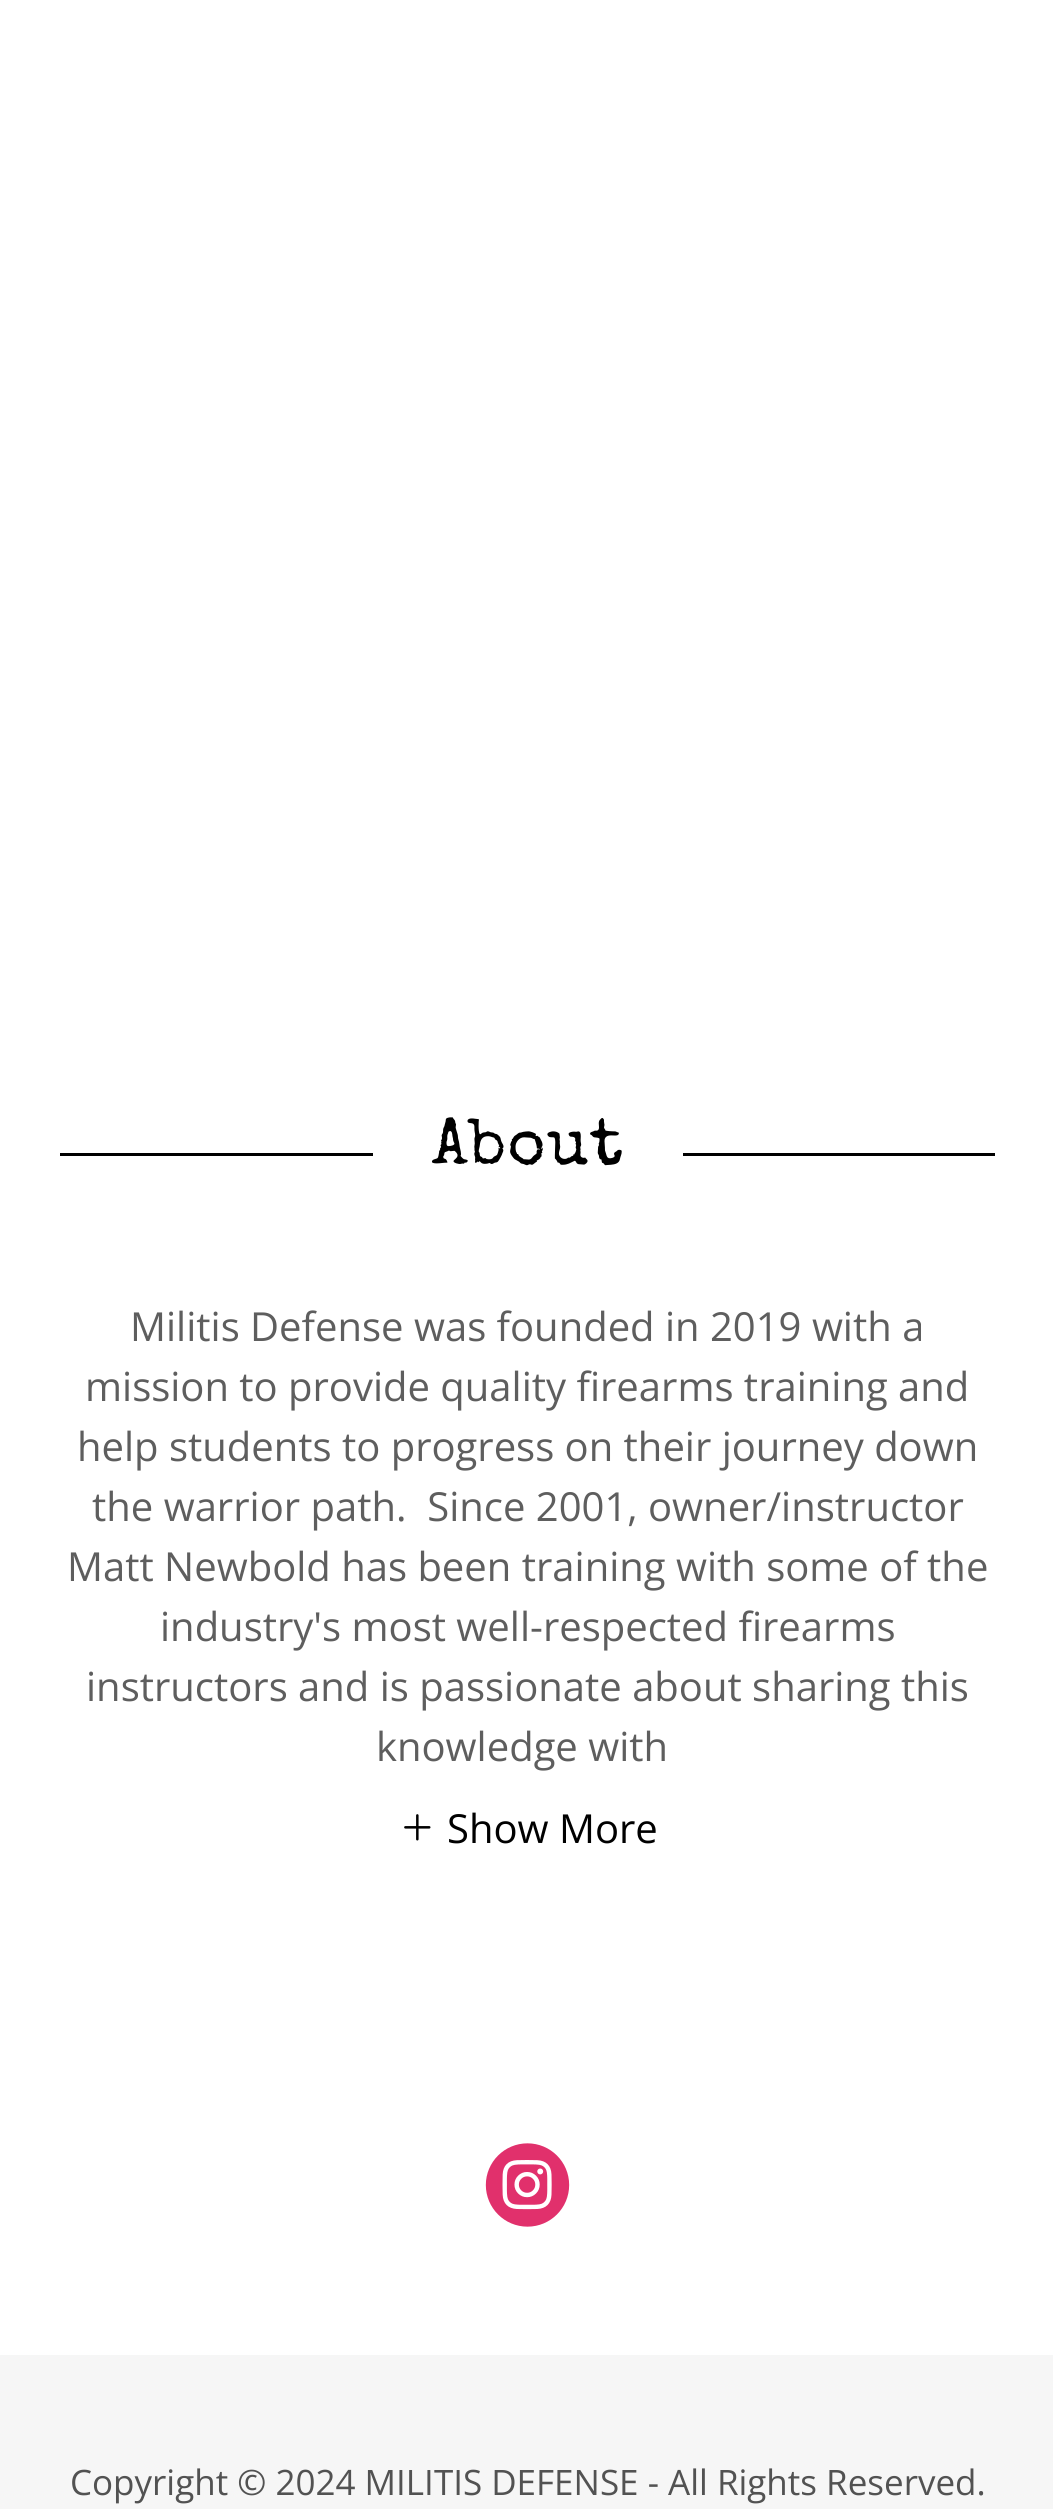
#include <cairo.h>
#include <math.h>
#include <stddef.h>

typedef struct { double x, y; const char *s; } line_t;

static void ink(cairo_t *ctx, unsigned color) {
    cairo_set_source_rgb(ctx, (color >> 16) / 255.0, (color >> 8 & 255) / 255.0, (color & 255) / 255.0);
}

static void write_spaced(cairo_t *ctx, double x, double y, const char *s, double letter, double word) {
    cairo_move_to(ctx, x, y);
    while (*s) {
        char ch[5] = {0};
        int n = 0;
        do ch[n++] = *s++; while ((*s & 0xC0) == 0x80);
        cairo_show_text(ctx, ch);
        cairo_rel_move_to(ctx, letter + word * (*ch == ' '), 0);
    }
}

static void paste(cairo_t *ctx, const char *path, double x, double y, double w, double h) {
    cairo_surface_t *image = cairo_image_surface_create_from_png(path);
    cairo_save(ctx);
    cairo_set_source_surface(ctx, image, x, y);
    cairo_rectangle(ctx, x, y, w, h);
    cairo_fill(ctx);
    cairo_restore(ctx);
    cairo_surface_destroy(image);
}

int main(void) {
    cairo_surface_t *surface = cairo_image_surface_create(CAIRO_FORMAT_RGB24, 1053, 2509);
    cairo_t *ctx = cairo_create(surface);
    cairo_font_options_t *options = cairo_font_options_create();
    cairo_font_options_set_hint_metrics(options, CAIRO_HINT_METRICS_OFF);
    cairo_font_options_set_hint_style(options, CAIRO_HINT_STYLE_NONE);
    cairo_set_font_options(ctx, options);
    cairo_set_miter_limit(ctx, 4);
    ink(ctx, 0xF6F6F6);
    cairo_paint(ctx);
    ink(ctx, 0xFFFFFF);
    cairo_rectangle(ctx, 0, 0, 1053, 2355);
    cairo_fill(ctx);
    ink(ctx, 0x000000);
    cairo_rectangle(ctx, 60, 1153, 313, 3);
    cairo_fill(ctx);
    cairo_select_font_face(ctx, "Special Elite", CAIRO_FONT_SLANT_NORMAL, CAIRO_FONT_WEIGHT_NORMAL);
    cairo_set_font_size(ctx, 65);
    write_spaced(ctx, 432, 1163, "About", 1.5, 0);
    cairo_rectangle(ctx, 683, 1153, 312, 3);
    cairo_fill(ctx);
    cairo_select_font_face(ctx, "Open Sans", CAIRO_FONT_SLANT_NORMAL, CAIRO_FONT_WEIGHT_NORMAL);
    cairo_set_font_size(ctx, 40);
    ink(ctx, 0x5E5E5E);
    {
        static const line_t items[] = {
            {130, 1341, "Militis Defense was founded in 2019 with a"},
            {85, 1401, "mission to provide quality firearms training and"},
            {77, 1461, "help students to progress on their journey down"},
            {92, 1521, "the warrior path.  Since 2001, owner/instructor"},
            {67, 1581, "Matt Newbold has been training with some of the"},
            {160, 1641, "industry's most well-respected firearms"},
            {86, 1701, "instructors and is passionate about sharing this"},
            {376, 1761, "knowledge with"},
        };
        for (size_t i = 0; i < sizeof items / sizeof *items; i++) {
            cairo_move_to(ctx, items[i].x, items[i].y);
            cairo_show_text(ctx, items[i].s);
        }
    }
    paste(ctx, "media/1.png", 404, 1814, 27, 27);
    ink(ctx, 0x000000);
    cairo_move_to(ctx, 447, 1843);
    cairo_show_text(ctx, "Show More");
    paste(ctx, "media/2.png", 485, 2143, 85, 84);
    cairo_set_font_size(ctx, 35);
    ink(ctx, 0x525252);
    cairo_move_to(ctx, 70, 2495);
    cairo_show_text(ctx, "Copyright © 2024 MILITIS DEFENSE - All Rights Reserved.");
    cairo_surface_write_to_png(surface, "image.png");
    cairo_font_options_destroy(options);
    cairo_destroy(ctx);
    cairo_surface_destroy(surface);
    return 0;
}
